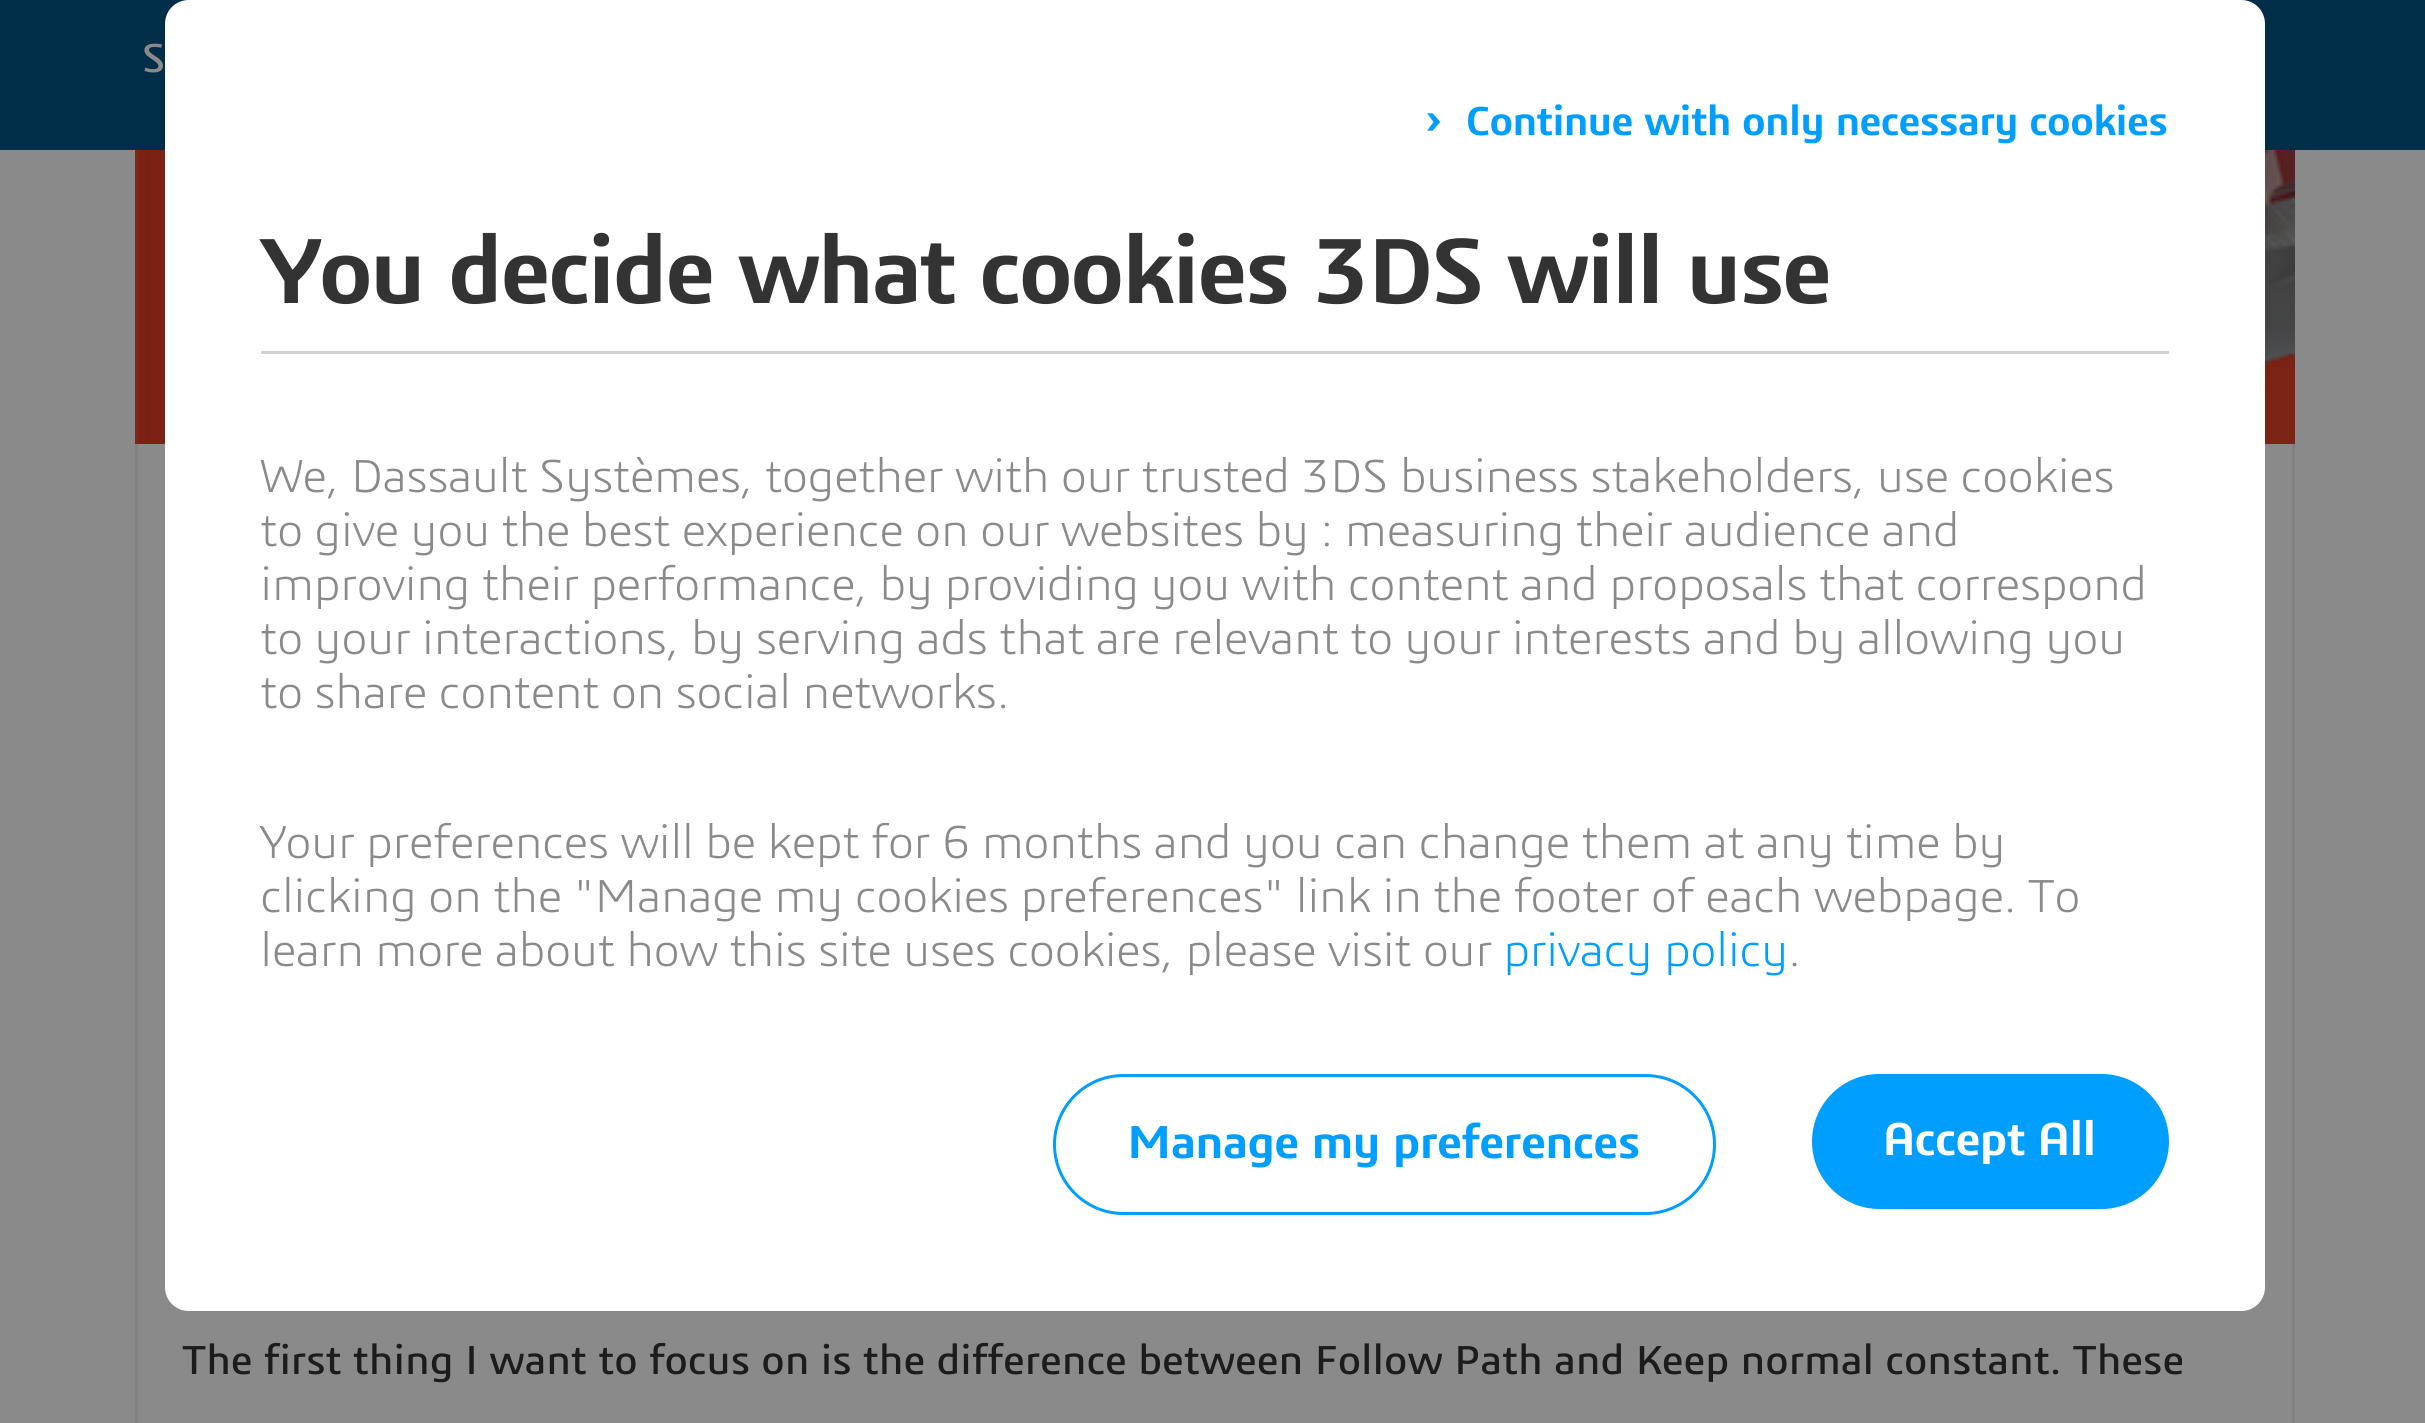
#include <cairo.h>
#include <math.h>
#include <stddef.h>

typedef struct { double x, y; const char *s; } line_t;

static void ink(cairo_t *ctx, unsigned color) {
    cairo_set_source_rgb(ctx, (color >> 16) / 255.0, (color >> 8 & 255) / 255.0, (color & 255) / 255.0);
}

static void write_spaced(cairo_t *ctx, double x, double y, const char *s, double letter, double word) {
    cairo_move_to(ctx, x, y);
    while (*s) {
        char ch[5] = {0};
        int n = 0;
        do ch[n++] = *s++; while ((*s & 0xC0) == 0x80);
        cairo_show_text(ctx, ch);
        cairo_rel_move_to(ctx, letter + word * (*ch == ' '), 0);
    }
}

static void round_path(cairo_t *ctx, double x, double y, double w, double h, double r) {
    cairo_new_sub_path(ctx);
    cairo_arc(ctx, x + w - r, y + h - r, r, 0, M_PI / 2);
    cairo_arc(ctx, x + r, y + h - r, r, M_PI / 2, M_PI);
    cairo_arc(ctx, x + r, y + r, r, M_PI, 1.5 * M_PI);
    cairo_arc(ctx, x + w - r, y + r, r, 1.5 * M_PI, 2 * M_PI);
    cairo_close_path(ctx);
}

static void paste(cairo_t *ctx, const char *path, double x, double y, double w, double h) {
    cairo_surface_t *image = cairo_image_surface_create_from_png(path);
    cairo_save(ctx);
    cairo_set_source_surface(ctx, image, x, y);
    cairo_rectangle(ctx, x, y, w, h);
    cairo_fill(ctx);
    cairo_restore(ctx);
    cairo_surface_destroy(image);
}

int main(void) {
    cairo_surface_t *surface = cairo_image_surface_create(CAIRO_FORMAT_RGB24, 2425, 1423);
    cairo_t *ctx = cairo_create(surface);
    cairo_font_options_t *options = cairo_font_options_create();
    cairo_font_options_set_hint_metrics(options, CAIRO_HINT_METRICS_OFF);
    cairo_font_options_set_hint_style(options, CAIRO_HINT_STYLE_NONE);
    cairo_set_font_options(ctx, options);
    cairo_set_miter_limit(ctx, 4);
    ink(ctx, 0x8A8A8A);
    cairo_paint(ctx);
    ink(ctx, 0x002E48);
    cairo_rectangle(ctx, 0, 0, 2425, 150);
    cairo_fill(ctx);
    cairo_select_font_face(ctx, "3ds", CAIRO_FONT_SLANT_NORMAL, CAIRO_FONT_WEIGHT_NORMAL);
    cairo_set_font_size(ctx, 42);
    ink(ctx, 0x8A8A8A);
    cairo_move_to(ctx, 142, 72);
    cairo_show_text(ctx, "S");
    paste(ctx, "media/1.png", 135, 150, 2160, 294);
    ink(ctx, 0xFFFFFF);
    cairo_new_path(ctx);
    cairo_move_to(ctx, 189, 0);
    cairo_line_to(ctx, 2241, 0);
    cairo_curve_to(ctx, 2254.5, 0, 2265, 10.5, 2265, 24);
    cairo_line_to(ctx, 2265, 1074);
    cairo_line_to(ctx, 165, 1074);
    cairo_line_to(ctx, 165, 24);
    cairo_curve_to(ctx, 165, 10.5, 175.5, 0, 189, 0);
    cairo_close_path(ctx);
    cairo_fill(ctx);
    ink(ctx, 0xD1D1D1);
    cairo_rectangle(ctx, 261, 351, 1908, 3);
    cairo_fill(ctx);
    cairo_select_font_face(ctx, "3ds SemiBold", CAIRO_FONT_SLANT_NORMAL, CAIRO_FONT_WEIGHT_NORMAL);
    cairo_set_font_size(ctx, 48);
    ink(ctx, 0x009EFF);
    write_spaced(ctx, 1425, 135, "›", -0.6, 0);
    cairo_set_font_size(ctx, 42);
    write_spaced(ctx, 1466, 135, "Continue with only necessary cookies", -0.6, 0);
    cairo_set_font_size(ctx, 96);
    ink(ctx, 0x333333);
    write_spaced(ctx, 260, 303, "You decide what cookies 3DS will use", -2.4, 0);
    cairo_select_font_face(ctx, "3ds Light", CAIRO_FONT_SLANT_NORMAL, CAIRO_FONT_WEIGHT_NORMAL);
    cairo_set_font_size(ctx, 48);
    ink(ctx, 0x8A8A8A);
    {
        static const line_t items[] = {
            {260, 492, "We, Dassault Systèmes, together with our trusted 3DS business stakeholders, use cookies"},
            {260, 546, "to give you the best experience on our websites by : measuring their audience and"},
            {260, 600, "improving their performance, by providing you with content and proposals that correspond"},
            {260, 654, "to your interactions, by serving ads that are relevant to your interests and by allowing you"},
            {260, 708, "to share content on social networks."},
            {260, 858, "Your preferences will be kept for 6 months and you can change them at any time by"},
            {260, 912, "clicking on the \"Manage my cookies preferences\" link in the footer of each webpage. To"},
            {260, 966, "learn more about how this site uses cookies, please visit our"},
        };
        for (size_t i = 0; i < sizeof items / sizeof *items; i++) {
            write_spaced(ctx, items[i].x, items[i].y, items[i].s, -0.6, 0);
        }
    }
    ink(ctx, 0x009EFF);
    write_spaced(ctx, 1503, 966, "privacy policy", -0.6, 0);
    ink(ctx, 0x8A8A8A);
    write_spaced(ctx, 1788, 966, ".", -0.6, 0);
    ink(ctx, 0xFFFFFF);
    cairo_new_path(ctx);
    cairo_move_to(ctx, 165, 1074);
    cairo_line_to(ctx, 2265, 1074);
    cairo_line_to(ctx, 2265, 1287);
    cairo_curve_to(ctx, 2265, 1300.5, 2254.5, 1311, 2241, 1311);
    cairo_line_to(ctx, 189, 1311);
    cairo_curve_to(ctx, 175.5, 1311, 165, 1300.5, 165, 1287);
    cairo_close_path(ctx);
    cairo_fill(ctx);
    round_path(ctx, 1054.5, 1075.5, 660, 138, 69);
    ink(ctx, 0x009EFF);
    cairo_set_line_width(ctx, 3);
    cairo_stroke(ctx);
    cairo_select_font_face(ctx, "3ds SemiBold", CAIRO_FONT_SLANT_NORMAL, CAIRO_FONT_WEIGHT_NORMAL);
    write_spaced(ctx, 1127, 1158, "Manage my preferences", -0.6, 0);
    round_path(ctx, 1812, 1074, 357, 135, 67.5);
    cairo_fill(ctx);
    ink(ctx, 0xFFFFFF);
    write_spaced(ctx, 1883, 1155, "Accept All", -0.6, 0);
    ink(ctx, 0x818181);
    cairo_rectangle(ctx, 2292, 444, 3, 979);
    cairo_fill(ctx);
    cairo_rectangle(ctx, 135, 444, 3, 979);
    cairo_fill(ctx);
    cairo_select_font_face(ctx, "3ds", CAIRO_FONT_SLANT_NORMAL, CAIRO_FONT_WEIGHT_NORMAL);
    cairo_set_font_size(ctx, 42);
    ink(ctx, 0x1C1C1C);
    cairo_move_to(ctx, 182, 1374);
    cairo_show_text(ctx, "The first thing I want to focus on is the difference between Follow Path and Keep normal constant. These");
    cairo_surface_write_to_png(surface, "image.png");
    cairo_font_options_destroy(options);
    cairo_destroy(ctx);
    cairo_surface_destroy(surface);
    return 0;
}
